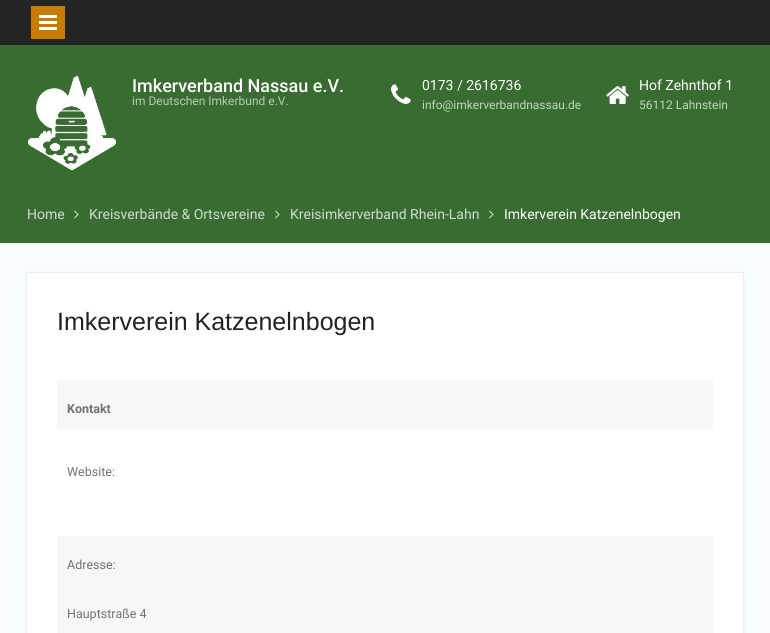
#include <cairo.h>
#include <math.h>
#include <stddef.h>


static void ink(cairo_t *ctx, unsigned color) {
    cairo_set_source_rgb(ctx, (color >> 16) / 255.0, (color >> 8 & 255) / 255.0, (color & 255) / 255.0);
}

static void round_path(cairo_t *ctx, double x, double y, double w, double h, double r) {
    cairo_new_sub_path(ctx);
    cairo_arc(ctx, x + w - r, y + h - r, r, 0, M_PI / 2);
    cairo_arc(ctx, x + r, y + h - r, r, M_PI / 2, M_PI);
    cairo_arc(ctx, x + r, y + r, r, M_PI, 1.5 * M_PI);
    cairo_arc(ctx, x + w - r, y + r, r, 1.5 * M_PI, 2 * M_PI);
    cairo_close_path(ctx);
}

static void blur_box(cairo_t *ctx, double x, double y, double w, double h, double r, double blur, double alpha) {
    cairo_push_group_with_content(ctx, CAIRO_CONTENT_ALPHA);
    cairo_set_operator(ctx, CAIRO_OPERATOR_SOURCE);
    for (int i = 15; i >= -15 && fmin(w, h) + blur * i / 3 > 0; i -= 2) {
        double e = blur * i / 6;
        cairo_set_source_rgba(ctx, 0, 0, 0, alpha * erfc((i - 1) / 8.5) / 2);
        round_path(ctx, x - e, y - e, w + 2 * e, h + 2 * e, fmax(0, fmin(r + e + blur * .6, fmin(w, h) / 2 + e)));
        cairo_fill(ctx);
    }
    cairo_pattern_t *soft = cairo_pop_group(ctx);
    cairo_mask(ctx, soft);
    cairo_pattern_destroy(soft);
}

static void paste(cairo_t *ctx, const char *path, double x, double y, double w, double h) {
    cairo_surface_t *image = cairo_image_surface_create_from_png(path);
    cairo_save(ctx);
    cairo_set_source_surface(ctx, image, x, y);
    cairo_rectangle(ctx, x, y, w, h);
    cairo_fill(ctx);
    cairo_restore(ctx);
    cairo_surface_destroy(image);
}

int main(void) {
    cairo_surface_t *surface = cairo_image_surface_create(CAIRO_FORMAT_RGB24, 770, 633);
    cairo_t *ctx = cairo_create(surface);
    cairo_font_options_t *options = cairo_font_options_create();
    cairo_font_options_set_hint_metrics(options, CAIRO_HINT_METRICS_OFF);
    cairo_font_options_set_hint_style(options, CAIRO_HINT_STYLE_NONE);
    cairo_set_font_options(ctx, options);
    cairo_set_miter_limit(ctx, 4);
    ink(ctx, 0xF7FCFE);
    cairo_paint(ctx);
    ink(ctx, 0x242424);
    cairo_rectangle(ctx, 0, 0, 770, 45);
    cairo_fill(ctx);
    ink(ctx, 0xC97D00);
    cairo_rectangle(ctx, 31, 6, 34, 33);
    cairo_fill(ctx);
    paste(ctx, "media/1.png", 39, 15, 18, 15);
    ink(ctx, 0x386C31);
    cairo_rectangle(ctx, 0, 45, 770, 198);
    cairo_fill(ctx);
    paste(ctx, "media/2.png", 27, 75, 90, 96);
    cairo_select_font_face(ctx, "Roboto Medium", CAIRO_FONT_SLANT_NORMAL, CAIRO_FONT_WEIGHT_NORMAL);
    cairo_set_font_size(ctx, 18);
    ink(ctx, 0xFFFFFF);
    cairo_move_to(ctx, 132, 92);
    cairo_show_text(ctx, "Imkerverband Nassau e.V.");
    cairo_select_font_face(ctx, "Roboto", CAIRO_FONT_SLANT_NORMAL, CAIRO_FONT_WEIGHT_NORMAL);
    cairo_set_font_size(ctx, 12);
    ink(ctx, 0xB7CAB5);
    cairo_move_to(ctx, 132, 105);
    cairo_show_text(ctx, "im Deutschen Imkerbund e.V.");
    paste(ctx, "media/3.png", 391, 84, 20, 20);
    cairo_set_font_size(ctx, 14);
    ink(ctx, 0xFFFFFF);
    cairo_move_to(ctx, 422, 90);
    cairo_show_text(ctx, "0173 / 2616736");
    cairo_set_font_size(ctx, 12);
    ink(ctx, 0xC3D3C1);
    cairo_move_to(ctx, 422, 109);
    cairo_show_text(ctx, "info@imkerverbandnassau.de");
    paste(ctx, "media/4.png", 606, 86, 23, 18);
    cairo_set_font_size(ctx, 14);
    ink(ctx, 0xFFFFFF);
    cairo_move_to(ctx, 639, 90);
    cairo_show_text(ctx, "Hof Zehnthof 1");
    cairo_set_font_size(ctx, 12);
    ink(ctx, 0xC3D3C1);
    cairo_move_to(ctx, 639, 109);
    cairo_show_text(ctx, "56112 Lahnstein");
    cairo_set_font_size(ctx, 14);
    ink(ctx, 0xCFDCCE);
    cairo_move_to(ctx, 27, 219);
    cairo_show_text(ctx, "Home");
    paste(ctx, "media/5.png", 74, 210, 5, 9);
    cairo_move_to(ctx, 89, 219);
    cairo_show_text(ctx, "Kreisverbände & Ortsvereine");
    paste(ctx, "media/5.png", 275, 210, 5, 9);
    cairo_move_to(ctx, 290, 219);
    cairo_show_text(ctx, "Kreisimkerverband Rhein-Lahn");
    paste(ctx, "media/5.png", 489, 210, 5, 9);
    ink(ctx, 0xFFFFFF);
    cairo_move_to(ctx, 504, 219);
    cairo_show_text(ctx, "Imkerverein Katzenelnbogen");
    ink(ctx, 0xCFCFCF);
    blur_box(ctx, 27, 273, 716, 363, 0, 1, 1);
    ink(ctx, 0xFFFFFF);
    cairo_rectangle(ctx, 27, 273, 716, 360);
    cairo_fill(ctx);
    cairo_select_font_face(ctx, "Liberation Sans", CAIRO_FONT_SLANT_NORMAL, CAIRO_FONT_WEIGHT_NORMAL);
    cairo_set_font_size(ctx, 25);
    ink(ctx, 0x222222);
    cairo_move_to(ctx, 57, 330);
    cairo_show_text(ctx, "Imkerverein Katzenelnbogen");
    ink(ctx, 0xF7F7F7);
    cairo_rectangle(ctx, 57, 380, 656, 49);
    cairo_fill(ctx);
    cairo_select_font_face(ctx, "Roboto", CAIRO_FONT_SLANT_NORMAL, CAIRO_FONT_WEIGHT_BOLD);
    cairo_set_font_size(ctx, 12.5);
    ink(ctx, 0x727272);
    cairo_move_to(ctx, 67, 413);
    cairo_show_text(ctx, "Kontakt");
    cairo_select_font_face(ctx, "Roboto", CAIRO_FONT_SLANT_NORMAL, CAIRO_FONT_WEIGHT_NORMAL);
    cairo_move_to(ctx, 67, 476);
    cairo_show_text(ctx, "Website:");
    ink(ctx, 0xF7F7F7);
    cairo_rectangle(ctx, 57, 536, 656, 97);
    cairo_fill(ctx);
    ink(ctx, 0x727272);
    cairo_move_to(ctx, 67, 569);
    cairo_show_text(ctx, "Adresse:");
    cairo_move_to(ctx, 67, 618);
    cairo_show_text(ctx, "Hauptstraße 4");
    cairo_surface_write_to_png(surface, "image.png");
    cairo_font_options_destroy(options);
    cairo_destroy(ctx);
    cairo_surface_destroy(surface);
    return 0;
}
